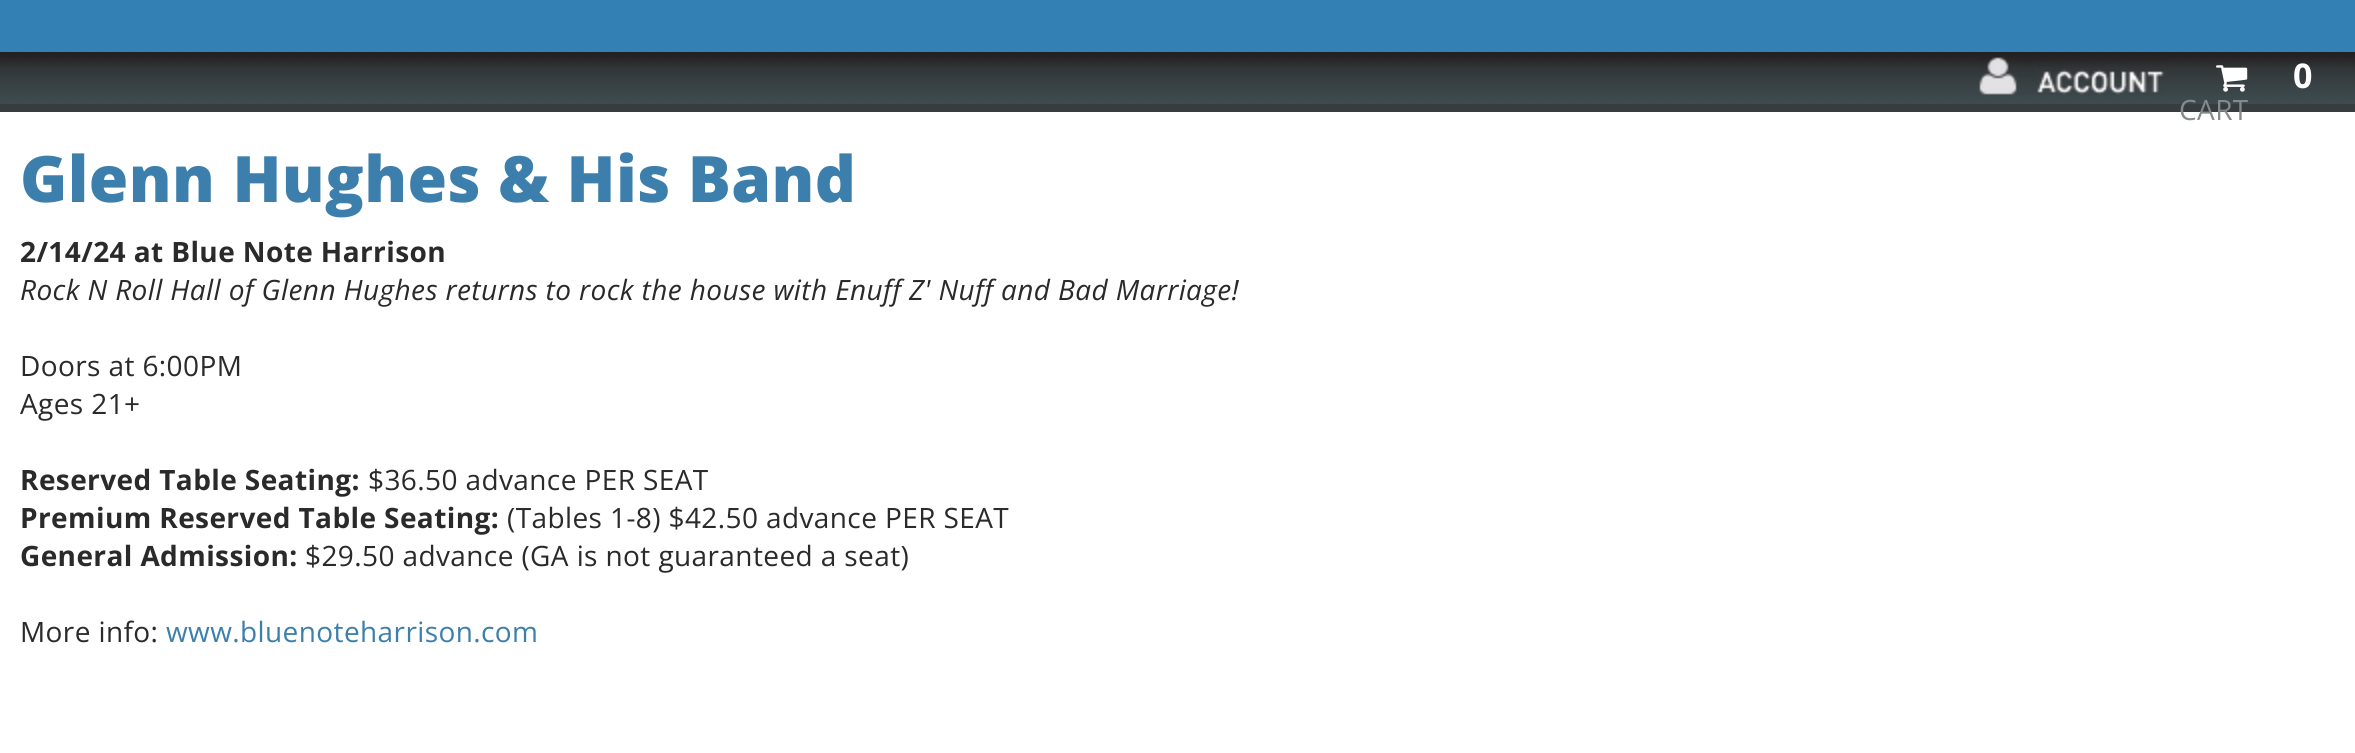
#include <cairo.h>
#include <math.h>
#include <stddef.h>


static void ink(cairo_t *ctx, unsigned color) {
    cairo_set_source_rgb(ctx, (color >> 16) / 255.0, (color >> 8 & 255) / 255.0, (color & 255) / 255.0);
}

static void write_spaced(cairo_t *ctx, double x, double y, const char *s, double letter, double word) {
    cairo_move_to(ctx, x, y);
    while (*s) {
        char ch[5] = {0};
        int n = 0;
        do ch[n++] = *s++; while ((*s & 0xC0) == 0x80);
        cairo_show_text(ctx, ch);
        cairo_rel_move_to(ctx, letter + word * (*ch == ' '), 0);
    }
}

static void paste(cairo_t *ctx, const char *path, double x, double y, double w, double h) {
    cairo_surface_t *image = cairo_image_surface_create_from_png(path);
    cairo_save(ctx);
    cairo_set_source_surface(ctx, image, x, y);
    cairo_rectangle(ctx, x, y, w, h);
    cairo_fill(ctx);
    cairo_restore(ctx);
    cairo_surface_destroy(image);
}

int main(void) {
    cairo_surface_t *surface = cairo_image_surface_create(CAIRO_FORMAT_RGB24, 2355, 753);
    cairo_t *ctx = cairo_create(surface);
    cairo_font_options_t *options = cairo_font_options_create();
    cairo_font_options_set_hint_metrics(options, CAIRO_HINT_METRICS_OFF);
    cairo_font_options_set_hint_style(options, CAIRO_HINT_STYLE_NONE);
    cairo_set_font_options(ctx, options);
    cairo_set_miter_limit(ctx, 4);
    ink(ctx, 0x3380B4);
    cairo_paint(ctx);
    ink(ctx, 0x373C3F);
    cairo_rectangle(ctx, 0, 104, 2355, 8);
    cairo_fill(ctx);
    paste(ctx, "media/1.png", 0, 52, 2355, 52);
    paste(ctx, "media/2.png", 1979, 57, 186, 38);
    paste(ctx, "media/3.png", 2216, 65, 32, 27);
    cairo_select_font_face(ctx, "Open Sans", CAIRO_FONT_SLANT_NORMAL, CAIRO_FONT_WEIGHT_BOLD);
    cairo_set_font_size(ctx, 34);
    ink(ctx, 0xFFFFFF);
    write_spaced(ctx, 2293, 88, "0", 0.4, 0);
    cairo_rectangle(ctx, 0, 112, 2355, 641);
    cairo_fill(ctx);
    cairo_select_font_face(ctx, "Open Sans", CAIRO_FONT_SLANT_NORMAL, CAIRO_FONT_WEIGHT_NORMAL);
    cairo_set_font_size(ctx, 28);
    ink(ctx, 0x858A8C);
    write_spaced(ctx, 2179, 120, "CART", 0.4, 0);
    cairo_select_font_face(ctx, "Open Sans ExtraBold", CAIRO_FONT_SLANT_NORMAL, CAIRO_FONT_WEIGHT_NORMAL);
    cairo_set_font_size(ctx, 64);
    ink(ctx, 0x3C7FAC);
    write_spaced(ctx, 20, 202, "Glenn Hughes & His Band", 0.4, 0);
    cairo_select_font_face(ctx, "Open Sans", CAIRO_FONT_SLANT_NORMAL, CAIRO_FONT_WEIGHT_BOLD);
    cairo_set_font_size(ctx, 28);
    ink(ctx, 0x2A2A2A);
    write_spaced(ctx, 20, 262, "2/14/24 at Blue Note Harrison", 0.4, 0);
    cairo_select_font_face(ctx, "Open Sans", CAIRO_FONT_SLANT_ITALIC, CAIRO_FONT_WEIGHT_NORMAL);
    write_spaced(ctx, 20, 300, "Rock N Roll Hall of Glenn Hughes returns to rock the house with Enuff Z' Nuff and Bad Marriage!", 0.4, 0);
    cairo_select_font_face(ctx, "Open Sans", CAIRO_FONT_SLANT_NORMAL, CAIRO_FONT_WEIGHT_NORMAL);
    write_spaced(ctx, 20, 376, "Doors at 6:00PM", 0.4, 0);
    write_spaced(ctx, 20, 414, "Ages 21+", 0.4, 0);
    cairo_select_font_face(ctx, "Open Sans", CAIRO_FONT_SLANT_NORMAL, CAIRO_FONT_WEIGHT_BOLD);
    write_spaced(ctx, 20, 490, "Reserved Table Seating:", 0.4, 0);
    cairo_select_font_face(ctx, "Open Sans", CAIRO_FONT_SLANT_NORMAL, CAIRO_FONT_WEIGHT_NORMAL);
    write_spaced(ctx, 368, 490, "$36.50 advance PER SEAT", 0.4, 0);
    cairo_select_font_face(ctx, "Open Sans", CAIRO_FONT_SLANT_NORMAL, CAIRO_FONT_WEIGHT_BOLD);
    write_spaced(ctx, 20, 528, "Premium Reserved Table Seating:", 0.4, 0);
    cairo_select_font_face(ctx, "Open Sans", CAIRO_FONT_SLANT_NORMAL, CAIRO_FONT_WEIGHT_NORMAL);
    write_spaced(ctx, 507, 528, "(Tables 1-8) $42.50 advance PER SEAT", 0.4, 0);
    cairo_select_font_face(ctx, "Open Sans", CAIRO_FONT_SLANT_NORMAL, CAIRO_FONT_WEIGHT_BOLD);
    write_spaced(ctx, 20, 566, "General Admission:", 0.4, 0);
    cairo_select_font_face(ctx, "Open Sans", CAIRO_FONT_SLANT_NORMAL, CAIRO_FONT_WEIGHT_NORMAL);
    write_spaced(ctx, 305, 566, "$29.50 advance (GA is not guaranteed a seat)", 0.4, 0);
    write_spaced(ctx, 20, 642, "More info:", 0.4, 0);
    ink(ctx, 0x3C7FAC);
    write_spaced(ctx, 166, 642, "www.bluenoteharrison.com", 0.4, 0);
    cairo_surface_write_to_png(surface, "image.png");
    cairo_font_options_destroy(options);
    cairo_destroy(ctx);
    cairo_surface_destroy(surface);
    return 0;
}
